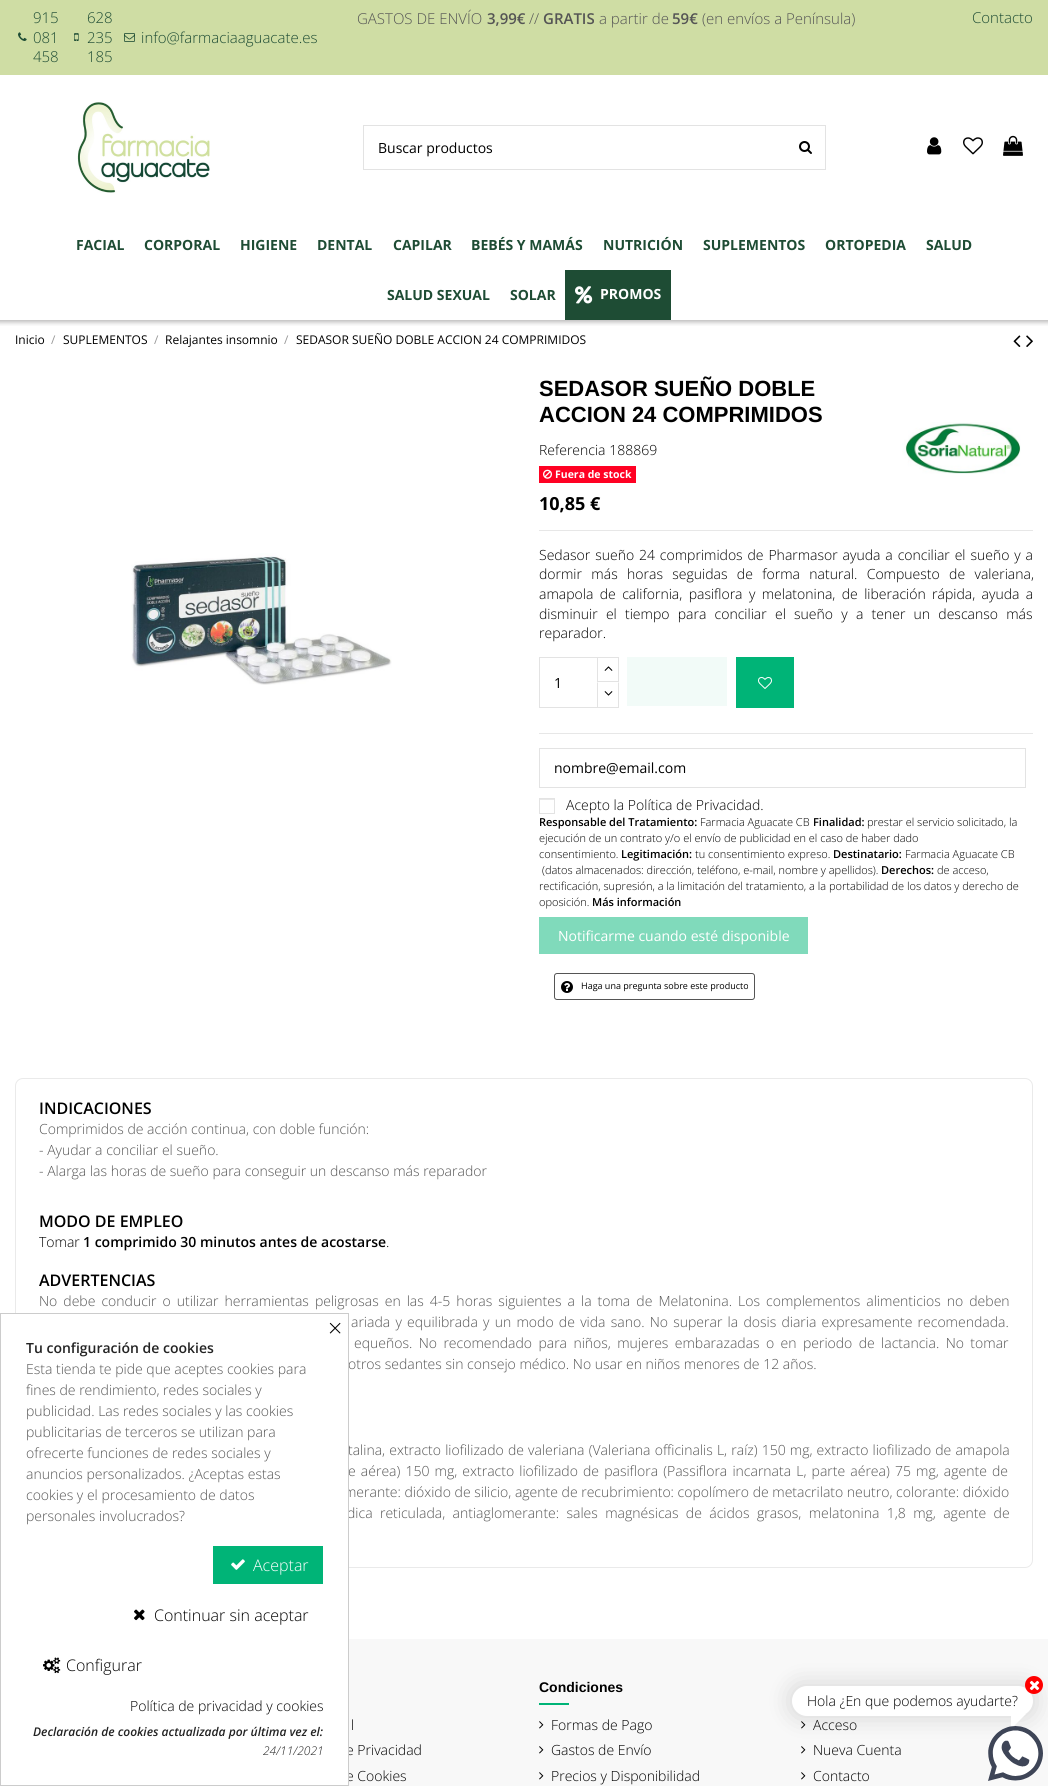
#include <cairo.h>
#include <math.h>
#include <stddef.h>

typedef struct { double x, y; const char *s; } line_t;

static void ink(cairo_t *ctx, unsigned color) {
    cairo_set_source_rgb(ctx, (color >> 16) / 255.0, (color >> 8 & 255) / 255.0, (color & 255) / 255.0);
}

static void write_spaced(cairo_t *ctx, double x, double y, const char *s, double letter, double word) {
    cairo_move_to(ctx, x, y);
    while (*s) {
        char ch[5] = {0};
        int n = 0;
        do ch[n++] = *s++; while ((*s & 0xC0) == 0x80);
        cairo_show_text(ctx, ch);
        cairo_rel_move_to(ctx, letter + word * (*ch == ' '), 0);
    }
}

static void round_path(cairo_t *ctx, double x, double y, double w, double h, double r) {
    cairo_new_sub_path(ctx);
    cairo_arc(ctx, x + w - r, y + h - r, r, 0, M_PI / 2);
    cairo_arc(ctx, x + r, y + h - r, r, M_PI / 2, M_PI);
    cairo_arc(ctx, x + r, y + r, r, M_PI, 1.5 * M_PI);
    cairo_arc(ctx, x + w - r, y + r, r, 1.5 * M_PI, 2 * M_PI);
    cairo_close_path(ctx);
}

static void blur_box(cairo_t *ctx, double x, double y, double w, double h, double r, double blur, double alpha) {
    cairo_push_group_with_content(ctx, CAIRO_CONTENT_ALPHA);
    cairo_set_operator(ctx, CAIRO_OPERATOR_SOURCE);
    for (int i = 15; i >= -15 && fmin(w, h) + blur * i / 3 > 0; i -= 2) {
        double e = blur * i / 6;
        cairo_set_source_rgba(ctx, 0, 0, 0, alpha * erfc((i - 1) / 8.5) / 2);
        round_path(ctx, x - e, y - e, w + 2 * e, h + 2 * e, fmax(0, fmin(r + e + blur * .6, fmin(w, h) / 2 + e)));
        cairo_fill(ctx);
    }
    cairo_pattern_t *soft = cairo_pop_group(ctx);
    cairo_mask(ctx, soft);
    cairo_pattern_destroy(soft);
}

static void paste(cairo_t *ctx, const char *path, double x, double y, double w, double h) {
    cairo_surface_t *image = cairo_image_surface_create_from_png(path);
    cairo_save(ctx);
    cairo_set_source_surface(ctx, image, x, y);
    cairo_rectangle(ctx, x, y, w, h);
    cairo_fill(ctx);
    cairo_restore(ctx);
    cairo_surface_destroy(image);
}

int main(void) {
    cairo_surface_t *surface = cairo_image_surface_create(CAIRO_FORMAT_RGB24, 1048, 1786);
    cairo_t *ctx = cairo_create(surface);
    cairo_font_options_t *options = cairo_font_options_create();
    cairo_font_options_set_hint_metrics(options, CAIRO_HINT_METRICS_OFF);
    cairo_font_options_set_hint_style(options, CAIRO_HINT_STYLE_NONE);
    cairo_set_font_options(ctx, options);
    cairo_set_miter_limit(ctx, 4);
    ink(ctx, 0xFFFFFF);
    cairo_paint(ctx);
    cairo_save(ctx);
    cairo_rectangle(ctx, 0, 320, 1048, 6);
    cairo_clip(ctx);
    ink(ctx, 0x403E3E);
    blur_box(ctx, -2, -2, 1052, 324, 0, 2.5, 0.39);
    cairo_restore(ctx);
    ink(ctx, 0xCFDDA4);
    cairo_rectangle(ctx, 0, 0, 1048, 75);
    cairo_fill(ctx);
    paste(ctx, "media/1.png", 18, 32, 9, 9);
    cairo_select_font_face(ctx, "Open Sans Light", CAIRO_FONT_SLANT_NORMAL, CAIRO_FONT_WEIGHT_NORMAL);
    cairo_set_font_size(ctx, 15);
    ink(ctx, 0x1E4C34);
    {
        static const line_t items[] = {
            {33, 23, "915"},
            {33, 43, "081"},
            {33, 62, "458"},
        };
        for (size_t i = 0; i < sizeof items / sizeof *items; i++) {
            cairo_move_to(ctx, items[i].x, items[i].y);
            cairo_show_text(ctx, items[i].s);
        }
    }
    paste(ctx, "media/2.png", 74, 33, 5, 8);
    {
        static const line_t items[] = {
            {87, 23, "628"},
            {87, 43, "235"},
            {87, 62, "185"},
        };
        for (size_t i = 0; i < sizeof items / sizeof *items; i++) {
            cairo_move_to(ctx, items[i].x, items[i].y);
            cairo_show_text(ctx, items[i].s);
        }
    }
    paste(ctx, "media/3.png", 124, 33, 11, 9);
    cairo_move_to(ctx, 141, 43);
    cairo_show_text(ctx, "info@farmaciaaguacate.es");
    ink(ctx, 0x555555);
    cairo_move_to(ctx, 357, 24);
    cairo_show_text(ctx, "GASTOS DE ENVÍO");
    cairo_select_font_face(ctx, "Open Sans SemiBold", CAIRO_FONT_SLANT_NORMAL, CAIRO_FONT_WEIGHT_NORMAL);
    cairo_move_to(ctx, 487, 24);
    cairo_show_text(ctx, "3,99€");
    cairo_select_font_face(ctx, "Open Sans Light", CAIRO_FONT_SLANT_NORMAL, CAIRO_FONT_WEIGHT_NORMAL);
    cairo_move_to(ctx, 529, 24);
    cairo_show_text(ctx, "//");
    cairo_select_font_face(ctx, "Open Sans SemiBold", CAIRO_FONT_SLANT_NORMAL, CAIRO_FONT_WEIGHT_NORMAL);
    cairo_move_to(ctx, 543, 24);
    cairo_show_text(ctx, "GRATIS");
    cairo_select_font_face(ctx, "Open Sans Light", CAIRO_FONT_SLANT_NORMAL, CAIRO_FONT_WEIGHT_NORMAL);
    cairo_move_to(ctx, 599, 24);
    cairo_show_text(ctx, "a partir de");
    cairo_select_font_face(ctx, "Open Sans SemiBold", CAIRO_FONT_SLANT_NORMAL, CAIRO_FONT_WEIGHT_NORMAL);
    cairo_move_to(ctx, 672, 24);
    cairo_show_text(ctx, "59€");
    cairo_select_font_face(ctx, "Open Sans Light", CAIRO_FONT_SLANT_NORMAL, CAIRO_FONT_WEIGHT_NORMAL);
    cairo_move_to(ctx, 702, 24);
    cairo_show_text(ctx, "(en envíos a Península)");
    ink(ctx, 0x1E4C34);
    cairo_move_to(ctx, 972, 23);
    cairo_show_text(ctx, "Contacto");
    paste(ctx, "media/4.png", 77, 102, 133, 91);
    cairo_rectangle(ctx, 363.5, 125.5, 462, 44);
    ink(ctx, 0xE3E3E3);
    cairo_set_line_width(ctx, 1);
    cairo_stroke(ctx);
    cairo_select_font_face(ctx, "Open Sans", CAIRO_FONT_SLANT_NORMAL, CAIRO_FONT_WEIGHT_NORMAL);
    cairo_set_font_size(ctx, 14);
    ink(ctx, 0x000000);
    cairo_move_to(ctx, 378, 153);
    cairo_show_text(ctx, "Buscar productos");
    paste(ctx, "media/5.png", 799, 141, 13, 13);
    paste(ctx, "media/6.png", 927, 137, 15, 18);
    paste(ctx, "media/7.png", 963, 137, 20, 18);
    paste(ctx, "media/8.png", 1003, 135, 20, 21);
    cairo_select_font_face(ctx, "Open Sans", CAIRO_FONT_SLANT_NORMAL, CAIRO_FONT_WEIGHT_BOLD);
    ink(ctx, 0x1E4C34);
    {
        static const line_t items[] = {
            {76, 250, "FACIAL"},
            {144, 250, "CORPORAL"},
            {240, 250, "HIGIENE"},
            {317, 250, "DENTAL"},
            {393, 250, "CAPILAR"},
            {471, 250, "BEBÉS Y MAMÁS"},
            {603, 250, "NUTRICIÓN"},
            {703, 250, "SUPLEMENTOS"},
            {825, 250, "ORTOPEDIA"},
            {926, 250, "SALUD"},
            {387, 300, "SALUD SEXUAL"},
            {510, 300, "SOLAR"},
        };
        for (size_t i = 0; i < sizeof items / sizeof *items; i++) {
            cairo_move_to(ctx, items[i].x, items[i].y);
            cairo_show_text(ctx, items[i].s);
        }
    }
    cairo_rectangle(ctx, 565, 270, 106, 50);
    cairo_fill(ctx);
    paste(ctx, "media/9.png", 575, 286, 18, 18);
    ink(ctx, 0xFFFFFF);
    cairo_move_to(ctx, 600, 299);
    cairo_show_text(ctx, "PROMOS");
    cairo_select_font_face(ctx, "Open Sans", CAIRO_FONT_SLANT_NORMAL, CAIRO_FONT_WEIGHT_NORMAL);
    cairo_set_font_size(ctx, 12);
    ink(ctx, 0x000000);
    cairo_move_to(ctx, 15, 344);
    cairo_show_text(ctx, "Inicio");
    ink(ctx, 0x999999);
    cairo_move_to(ctx, 51, 344);
    cairo_show_text(ctx, "/");
    ink(ctx, 0x000000);
    cairo_move_to(ctx, 63, 344);
    cairo_show_text(ctx, "SUPLEMENTOS");
    ink(ctx, 0x999999);
    cairo_move_to(ctx, 154, 344);
    cairo_show_text(ctx, "/");
    ink(ctx, 0x000000);
    cairo_move_to(ctx, 165, 344);
    cairo_show_text(ctx, "Relajantes insomnio");
    ink(ctx, 0x999999);
    cairo_move_to(ctx, 284, 344);
    cairo_show_text(ctx, "/");
    ink(ctx, 0x000000);
    cairo_move_to(ctx, 296, 344);
    cairo_show_text(ctx, "SEDASOR SUEÑO DOBLE ACCION 24 COMPRIMIDOS");
    paste(ctx, "media/10.png", 1013, 335, 8, 12);
    paste(ctx, "media/11.png", 1026, 335, 7, 12);
    paste(ctx, "media/12.png", 131, 553, 261, 132);
    ink(ctx, 0xE7E7E7);
    cairo_rectangle(ctx, 539, 530, 494, 1);
    cairo_fill(ctx);
    cairo_select_font_face(ctx, "Liberation Sans", CAIRO_FONT_SLANT_NORMAL, CAIRO_FONT_WEIGHT_BOLD);
    cairo_set_font_size(ctx, 22);
    ink(ctx, 0x000000);
    cairo_move_to(ctx, 539, 396);
    cairo_show_text(ctx, "SEDASOR SUEÑO DOBLE");
    cairo_move_to(ctx, 539, 422);
    cairo_show_text(ctx, "ACCION 24 COMPRIMIDOS");
    cairo_select_font_face(ctx, "Open Sans Light", CAIRO_FONT_SLANT_NORMAL, CAIRO_FONT_WEIGHT_NORMAL);
    cairo_set_font_size(ctx, 14);
    cairo_move_to(ctx, 539, 455);
    cairo_show_text(ctx, "Referencia 188869");
    ink(ctx, 0xFF0123);
    cairo_rectangle(ctx, 539, 466, 97, 17);
    cairo_fill(ctx);
    paste(ctx, "media/13.png", 543, 469, 9, 10);
    cairo_select_font_face(ctx, "Open Sans", CAIRO_FONT_SLANT_NORMAL, CAIRO_FONT_WEIGHT_BOLD);
    cairo_set_font_size(ctx, 10.5);
    ink(ctx, 0xFFFFFF);
    cairo_move_to(ctx, 555, 478);
    cairo_show_text(ctx, "Fuera de stock");
    cairo_set_font_size(ctx, 18);
    ink(ctx, 0x000000);
    cairo_move_to(ctx, 539, 510);
    cairo_show_text(ctx, "10,85 €");
    paste(ctx, "media/14.png", 902, 422, 119, 52);
    cairo_select_font_face(ctx, "Open Sans Light", CAIRO_FONT_SLANT_NORMAL, CAIRO_FONT_WEIGHT_NORMAL);
    cairo_set_font_size(ctx, 14);
    write_spaced(ctx, 539, 560, "Sedasor sueño 24 comprimidos de Pharmasor ayuda a conciliar el sueño y a", 0, 1.25);
    write_spaced(ctx, 539, 579, "dormir más horas seguidas de forma natural. Compuesto de valeriana,", 0, 5.75);
    write_spaced(ctx, 539, 599, "amapola de california, pasiflora y melatonina, de liberación rápida, ayuda a", 0, 2.75);
    write_spaced(ctx, 539, 619, "disminuir el tiempo para conciliar el sueño y a tener un descanso más", 0, 4.6);
    cairo_move_to(ctx, 539, 638);
    cairo_show_text(ctx, "reparador.");
    cairo_rectangle(ctx, 539.5, 657.5, 58, 50);
    ink(ctx, 0xE3E3E3);
    cairo_stroke(ctx);
    cairo_select_font_face(ctx, "Open Sans", CAIRO_FONT_SLANT_NORMAL, CAIRO_FONT_WEIGHT_NORMAL);
    ink(ctx, 0x000000);
    cairo_move_to(ctx, 554, 688);
    cairo_show_text(ctx, "1");
    cairo_rectangle(ctx, 597.5, 657.5, 21, 24);
    ink(ctx, 0xE3E3E3);
    cairo_stroke(ctx);
    paste(ctx, "media/15.png", 604, 666, 9, 5);
    ink(ctx, 0xFFFFFF);
    cairo_rectangle(ctx, 597, 682, 1, 25);
    cairo_fill(ctx);
    ink(ctx, 0xE3E3E3);
    cairo_new_path(ctx);
    cairo_move_to(ctx, 619, 682);
    cairo_line_to(ctx, 619, 708);
    cairo_line_to(ctx, 618, 707);
    cairo_line_to(ctx, 618, 683);
    cairo_close_path(ctx);
    cairo_fill(ctx);
    cairo_rectangle(ctx, 597, 707, 22, 1);
    cairo_fill(ctx);
    cairo_new_path(ctx);
    cairo_move_to(ctx, 597, 708);
    cairo_line_to(ctx, 597, 682);
    cairo_line_to(ctx, 598, 683);
    cairo_line_to(ctx, 598, 707);
    cairo_close_path(ctx);
    cairo_fill(ctx);
    paste(ctx, "media/16.png", 604, 691, 9, 5);
    ink(ctx, 0xF2FBF8);
    cairo_rectangle(ctx, 627, 657, 100, 49);
    cairo_fill(ctx);
    ink(ctx, 0x00B477);
    cairo_rectangle(ctx, 736, 657, 58, 51);
    cairo_fill(ctx);
    paste(ctx, "media/17.png", 758, 677, 14, 12);
    ink(ctx, 0xE7E7E7);
    cairo_rectangle(ctx, 539, 733, 494, 1);
    cairo_fill(ctx);
    cairo_rectangle(ctx, 539.5, 748.5, 486, 39);
    ink(ctx, 0xE3E3E3);
    cairo_stroke(ctx);
    ink(ctx, 0x000000);
    cairo_move_to(ctx, 554, 773);
    cairo_show_text(ctx, "nombre@email.com");
    ink(ctx, 0xE8E8E8);
    cairo_rectangle(ctx, 540, 799, 14, 1);
    cairo_fill(ctx);
    cairo_rectangle(ctx, 539.5, 798.5, 15, 15);
    ink(ctx, 0xE3E3E3);
    cairo_stroke(ctx);
    cairo_select_font_face(ctx, "Open Sans Light", CAIRO_FONT_SLANT_NORMAL, CAIRO_FONT_WEIGHT_NORMAL);
    ink(ctx, 0x000000);
    cairo_move_to(ctx, 566, 810);
    cairo_show_text(ctx, "Acepto la Política de Privacidad.");
    cairo_select_font_face(ctx, "Open Sans SemiBold", CAIRO_FONT_SLANT_NORMAL, CAIRO_FONT_WEIGHT_NORMAL);
    cairo_set_font_size(ctx, 11);
    cairo_move_to(ctx, 539, 826);
    cairo_show_text(ctx, "Responsable del Tratamiento:");
    cairo_select_font_face(ctx, "Open Sans Light", CAIRO_FONT_SLANT_NORMAL, CAIRO_FONT_WEIGHT_NORMAL);
    cairo_move_to(ctx, 700, 826);
    cairo_show_text(ctx, "Farmacia Aguacate CB");
    cairo_select_font_face(ctx, "Open Sans SemiBold", CAIRO_FONT_SLANT_NORMAL, CAIRO_FONT_WEIGHT_NORMAL);
    cairo_move_to(ctx, 813, 826);
    cairo_show_text(ctx, "Finalidad:");
    cairo_select_font_face(ctx, "Open Sans Light", CAIRO_FONT_SLANT_NORMAL, CAIRO_FONT_WEIGHT_NORMAL);
    {
        static const line_t items[] = {
            {867, 826, "prestar el servicio solicitado, la"},
            {539, 842, "ejecución de un contrato y/o el envío de publicidad en el caso de haber dado"},
            {539, 858, "consentimiento."},
        };
        for (size_t i = 0; i < sizeof items / sizeof *items; i++) {
            cairo_move_to(ctx, items[i].x, items[i].y);
            cairo_show_text(ctx, items[i].s);
        }
    }
    cairo_select_font_face(ctx, "Open Sans SemiBold", CAIRO_FONT_SLANT_NORMAL, CAIRO_FONT_WEIGHT_NORMAL);
    cairo_move_to(ctx, 621, 858);
    cairo_show_text(ctx, "Legitimación:");
    cairo_select_font_face(ctx, "Open Sans Light", CAIRO_FONT_SLANT_NORMAL, CAIRO_FONT_WEIGHT_NORMAL);
    cairo_move_to(ctx, 695, 858);
    cairo_show_text(ctx, "tu consentimiento expreso.");
    cairo_select_font_face(ctx, "Open Sans SemiBold", CAIRO_FONT_SLANT_NORMAL, CAIRO_FONT_WEIGHT_NORMAL);
    cairo_move_to(ctx, 833, 858);
    cairo_show_text(ctx, "Destinatario:");
    cairo_select_font_face(ctx, "Open Sans Light", CAIRO_FONT_SLANT_NORMAL, CAIRO_FONT_WEIGHT_NORMAL);
    cairo_move_to(ctx, 905, 858);
    cairo_show_text(ctx, "Farmacia Aguacate CB");
    cairo_move_to(ctx, 542, 874);
    cairo_show_text(ctx, "(datos almacenados: dirección, teléfono, e-mail, nombre y apellidos).");
    cairo_select_font_face(ctx, "Open Sans SemiBold", CAIRO_FONT_SLANT_NORMAL, CAIRO_FONT_WEIGHT_NORMAL);
    cairo_move_to(ctx, 881, 874);
    cairo_show_text(ctx, "Derechos:");
    cairo_select_font_face(ctx, "Open Sans Light", CAIRO_FONT_SLANT_NORMAL, CAIRO_FONT_WEIGHT_NORMAL);
    {
        static const line_t items[] = {
            {937, 874, "de acceso,"},
            {539, 890, "rectificación, supresión, a la limitación del tratamiento, a la portabilidad de los datos y derecho de"},
            {539, 906, "oposición."},
        };
        for (size_t i = 0; i < sizeof items / sizeof *items; i++) {
            cairo_move_to(ctx, items[i].x, items[i].y);
            cairo_show_text(ctx, items[i].s);
        }
    }
    cairo_select_font_face(ctx, "Open Sans SemiBold", CAIRO_FONT_SLANT_NORMAL, CAIRO_FONT_WEIGHT_NORMAL);
    cairo_move_to(ctx, 592, 906);
    cairo_show_text(ctx, "Más información");
    ink(ctx, 0x80DABB);
    cairo_rectangle(ctx, 539, 917, 269, 37);
    cairo_fill(ctx);
    cairo_select_font_face(ctx, "Open Sans", CAIRO_FONT_SLANT_NORMAL, CAIRO_FONT_WEIGHT_NORMAL);
    cairo_set_font_size(ctx, 14);
    ink(ctx, 0xFFFFFF);
    cairo_move_to(ctx, 558, 941);
    cairo_show_text(ctx, "Notificarme cuando esté disponible");
    round_path(ctx, 554.5, 973.5, 200, 26, 2.5);
    ink(ctx, 0x555555);
    cairo_stroke(ctx);
    paste(ctx, "media/18.png", 561, 981, 12, 12);
    cairo_set_font_size(ctx, 9);
    ink(ctx, 0x000000);
    cairo_move_to(ctx, 581, 989);
    cairo_show_text(ctx, "Haga una pregunta sobre este producto");
    round_path(ctx, 15.5, 1078.5, 1017, 489, 7.5);
    ink(ctx, 0xEAEAEA);
    cairo_stroke(ctx);
    cairo_select_font_face(ctx, "Open Sans SemiBold", CAIRO_FONT_SLANT_NORMAL, CAIRO_FONT_WEIGHT_NORMAL);
    cairo_set_font_size(ctx, 16);
    ink(ctx, 0x000000);
    cairo_move_to(ctx, 39, 1114);
    cairo_show_text(ctx, "INDICACIONES");
    cairo_select_font_face(ctx, "Open Sans Light", CAIRO_FONT_SLANT_NORMAL, CAIRO_FONT_WEIGHT_NORMAL);
    cairo_set_font_size(ctx, 14);
    ink(ctx, 0x555555);
    {
        static const line_t items[] = {
            {39, 1134, "Comprimidos de acción continua, con doble función:"},
            {39, 1155, "- Ayudar a conciliar el sueño."},
            {39, 1176, "- Alarga las horas de sueño para conseguir un descanso más reparador"},
        };
        for (size_t i = 0; i < sizeof items / sizeof *items; i++) {
            cairo_move_to(ctx, items[i].x, items[i].y);
            cairo_show_text(ctx, items[i].s);
        }
    }
    cairo_select_font_face(ctx, "Open Sans SemiBold", CAIRO_FONT_SLANT_NORMAL, CAIRO_FONT_WEIGHT_NORMAL);
    cairo_set_font_size(ctx, 16);
    ink(ctx, 0x000000);
    cairo_move_to(ctx, 39, 1227);
    cairo_show_text(ctx, "MODO DE EMPLEO");
    cairo_select_font_face(ctx, "Open Sans Light", CAIRO_FONT_SLANT_NORMAL, CAIRO_FONT_WEIGHT_NORMAL);
    cairo_set_font_size(ctx, 14);
    cairo_move_to(ctx, 39, 1247);
    cairo_show_text(ctx, "Tomar");
    cairo_select_font_face(ctx, "Open Sans SemiBold", CAIRO_FONT_SLANT_NORMAL, CAIRO_FONT_WEIGHT_NORMAL);
    cairo_move_to(ctx, 83, 1247);
    cairo_show_text(ctx, "1 comprimido 30 minutos antes de acostarse");
    cairo_select_font_face(ctx, "Open Sans Light", CAIRO_FONT_SLANT_NORMAL, CAIRO_FONT_WEIGHT_NORMAL);
    cairo_move_to(ctx, 386, 1247);
    cairo_show_text(ctx, ".");
    cairo_select_font_face(ctx, "Open Sans SemiBold", CAIRO_FONT_SLANT_NORMAL, CAIRO_FONT_WEIGHT_NORMAL);
    cairo_set_font_size(ctx, 16);
    cairo_move_to(ctx, 39, 1286);
    cairo_show_text(ctx, "ADVERTENCIAS");
    cairo_select_font_face(ctx, "Open Sans Light", CAIRO_FONT_SLANT_NORMAL, CAIRO_FONT_WEIGHT_NORMAL);
    cairo_set_font_size(ctx, 14);
    ink(ctx, 0x555555);
    write_spaced(ctx, 39, 1306, "No debe conducir o utilizar herramientas peligrosas en las 4-5 horas siguientes a la toma de Melatonina. Los complementos alimenticios no deben", 0, 2.4);
    write_spaced(ctx, 351, 1327, "ariada y equilibrada y un modo de vida sano. No superar la dosis diaria expresamente recomendada.", 0, 1.6);
    write_spaced(ctx, 354, 1348, "equeños. No recomendado para niños, mujeres embarazadas o en periodo de lactancia. No tomar", 0, 2.75);
    cairo_move_to(ctx, 348, 1369);
    cairo_show_text(ctx, "otros sedantes sin consejo médico. No usar en niños menores de 12 años.");
    write_spaced(ctx, 348, 1455, "talina, extracto liofilizado de valeriana (Valeriana officinalis L, raíz) 150 mg, extracto liofilizado de amapola", 0, 0.5);
    write_spaced(ctx, 348, 1476, "e aérea) 150 mg, extracto liofilizado de pasiflora (Passiflora incarnata L, parte aérea) 75 mg, agente de", 0, 1.5);
    cairo_move_to(ctx, 344, 1497);
    cairo_show_text(ctx, "merante: dióxido de silicio, agente de recubrimiento: copolímero de metacrilato neutro, colorante: dióxido");
    write_spaced(ctx, 347, 1518, "dica reticulada, antiaglomerante: sales magnésicas de ácidos grasos, melatonina 1,8 mg, agente de", 0, 3.75);
    ink(ctx, 0xF8F8F8);
    cairo_rectangle(ctx, 349, 1639, 699, 147);
    cairo_fill(ctx);
    cairo_select_font_face(ctx, "Liberation Sans", CAIRO_FONT_SLANT_NORMAL, CAIRO_FONT_WEIGHT_BOLD);
    ink(ctx, 0x000000);
    cairo_move_to(ctx, 539, 1692);
    cairo_show_text(ctx, "Condiciones");
    ink(ctx, 0x00B477);
    cairo_rectangle(ctx, 539, 1703, 30, 2);
    cairo_fill(ctx);
    paste(ctx, "media/19.png", 539, 1721, 5, 8);
    cairo_select_font_face(ctx, "Open Sans Light", CAIRO_FONT_SLANT_NORMAL, CAIRO_FONT_WEIGHT_NORMAL);
    ink(ctx, 0x000000);
    cairo_move_to(ctx, 551, 1730);
    cairo_show_text(ctx, "Formas de Pago");
    paste(ctx, "media/19.png", 539, 1746, 5, 8);
    cairo_move_to(ctx, 551, 1755);
    cairo_show_text(ctx, "Gastos de Envío");
    paste(ctx, "media/19.png", 539, 1772, 5, 8);
    cairo_move_to(ctx, 551, 1781);
    cairo_show_text(ctx, "Precios y Disponibilidad");
    paste(ctx, "media/19.png", 801, 1721, 5, 8);
    paste(ctx, "media/19.png", 801, 1746, 5, 8);
    ink(ctx, 0x000000);
    blur_box(ctx, 792, 1686, 241, 30, 15, 12.5, 0.15);
    ink(ctx, 0xFFFFFF);
    round_path(ctx, 792, 1686, 241, 30, 15);
    cairo_fill(ctx);
    ink(ctx, 0xFF0000);
    cairo_arc(ctx, 1034, 1685, 9, 0, 2 * M_PI);
    cairo_fill(ctx);
    paste(ctx, "media/20.png", 1029, 1680, 11, 11);
    ink(ctx, 0x000000);
    cairo_move_to(ctx, 807, 1706);
    cairo_show_text(ctx, "Hola ¿En que podemos ayudarte?");
    ink(ctx, 0xFFFFFF);
    cairo_new_path(ctx);
    cairo_move_to(ctx, 1011, 1714);
    cairo_line_to(ctx, 1026, 1714);
    cairo_line_to(ctx, 1011, 1729);
    cairo_close_path(ctx);
    cairo_fill(ctx);
    paste(ctx, "media/21.png", 988, 1726, 55, 55);
    ink(ctx, 0x000000);
    {
        static const line_t items[] = {
            {351, 1730, "l"},
            {346, 1755, "e Privacidad"},
            {346, 1781, "e Cookies"},
            {813, 1730, "Acceso"},
            {813, 1755, "Nueva Cuenta"},
        };
        for (size_t i = 0; i < sizeof items / sizeof *items; i++) {
            cairo_move_to(ctx, items[i].x, items[i].y);
            cairo_show_text(ctx, items[i].s);
        }
    }
    paste(ctx, "media/19.png", 801, 1772, 5, 8);
    cairo_move_to(ctx, 813, 1781);
    cairo_show_text(ctx, "Contacto");
    ink(ctx, 0xFFFFFF);
    cairo_rectangle(ctx, 15, 1314, 333, 467);
    cairo_fill(ctx);
    cairo_rectangle(ctx, 0.5, 1313.5, 348, 472);
    ink(ctx, 0xCCCCCC);
    cairo_stroke(ctx);
    cairo_set_font_size(ctx, 25);
    ink(ctx, 0x000000);
    cairo_move_to(ctx, 328, 1337);
    cairo_show_text(ctx, "×");
    cairo_select_font_face(ctx, "Open Sans SemiBold", CAIRO_FONT_SLANT_NORMAL, CAIRO_FONT_WEIGHT_NORMAL);
    cairo_set_font_size(ctx, 14);
    ink(ctx, 0x232323);
    cairo_move_to(ctx, 26, 1353);
    cairo_show_text(ctx, "Tu configuración de cookies");
    cairo_select_font_face(ctx, "Open Sans Light", CAIRO_FONT_SLANT_NORMAL, CAIRO_FONT_WEIGHT_NORMAL);
    ink(ctx, 0x555555);
    {
        static const line_t items[] = {
            {26, 1374, "Esta tienda te pide que aceptes cookies para"},
            {26, 1395, "fines de rendimiento, redes sociales y"},
            {26, 1416, "publicidad. Las redes sociales y las cookies"},
            {26, 1437, "publicitarias de terceros se utilizan para"},
            {26, 1458, "ofrecerte funciones de redes sociales y"},
            {26, 1479, "anuncios personalizados. ¿Aceptas estas"},
            {26, 1500, "cookies y el procesamiento de datos"},
            {26, 1521, "personales involucrados?"},
        };
        for (size_t i = 0; i < sizeof items / sizeof *items; i++) {
            cairo_move_to(ctx, items[i].x, items[i].y);
            cairo_show_text(ctx, items[i].s);
        }
    }
    ink(ctx, 0x00B477);
    cairo_rectangle(ctx, 213, 1546, 110, 38);
    cairo_fill(ctx);
    paste(ctx, "media/22.png", 231, 1559, 14, 11);
    cairo_set_font_size(ctx, 16);
    ink(ctx, 0xFFFFFF);
    cairo_move_to(ctx, 253, 1571);
    cairo_show_text(ctx, "Aceptar");
    paste(ctx, "media/23.png", 134, 1609, 11, 12);
    ink(ctx, 0x000000);
    cairo_move_to(ctx, 154, 1621);
    cairo_show_text(ctx, "Continuar sin aceptar");
    paste(ctx, "media/24.png", 43, 1657, 18, 17);
    cairo_move_to(ctx, 66, 1671);
    cairo_show_text(ctx, "Configurar");
    cairo_set_font_size(ctx, 14);
    cairo_move_to(ctx, 130, 1711);
    cairo_show_text(ctx, "Política de privacidad y cookies");
    cairo_select_font_face(ctx, "Open Sans SemiBold", CAIRO_FONT_SLANT_ITALIC, CAIRO_FONT_WEIGHT_NORMAL);
    cairo_set_font_size(ctx, 12);
    ink(ctx, 0x232323);
    cairo_move_to(ctx, 33, 1736);
    cairo_show_text(ctx, "Declaración de cookies actualizada por última vez el:");
    cairo_select_font_face(ctx, "Open Sans Light", CAIRO_FONT_SLANT_ITALIC, CAIRO_FONT_WEIGHT_NORMAL);
    cairo_move_to(ctx, 263, 1755);
    cairo_show_text(ctx, "24/11/2021");
    cairo_surface_write_to_png(surface, "image.png");
    cairo_font_options_destroy(options);
    cairo_destroy(ctx);
    cairo_surface_destroy(surface);
    return 0;
}
